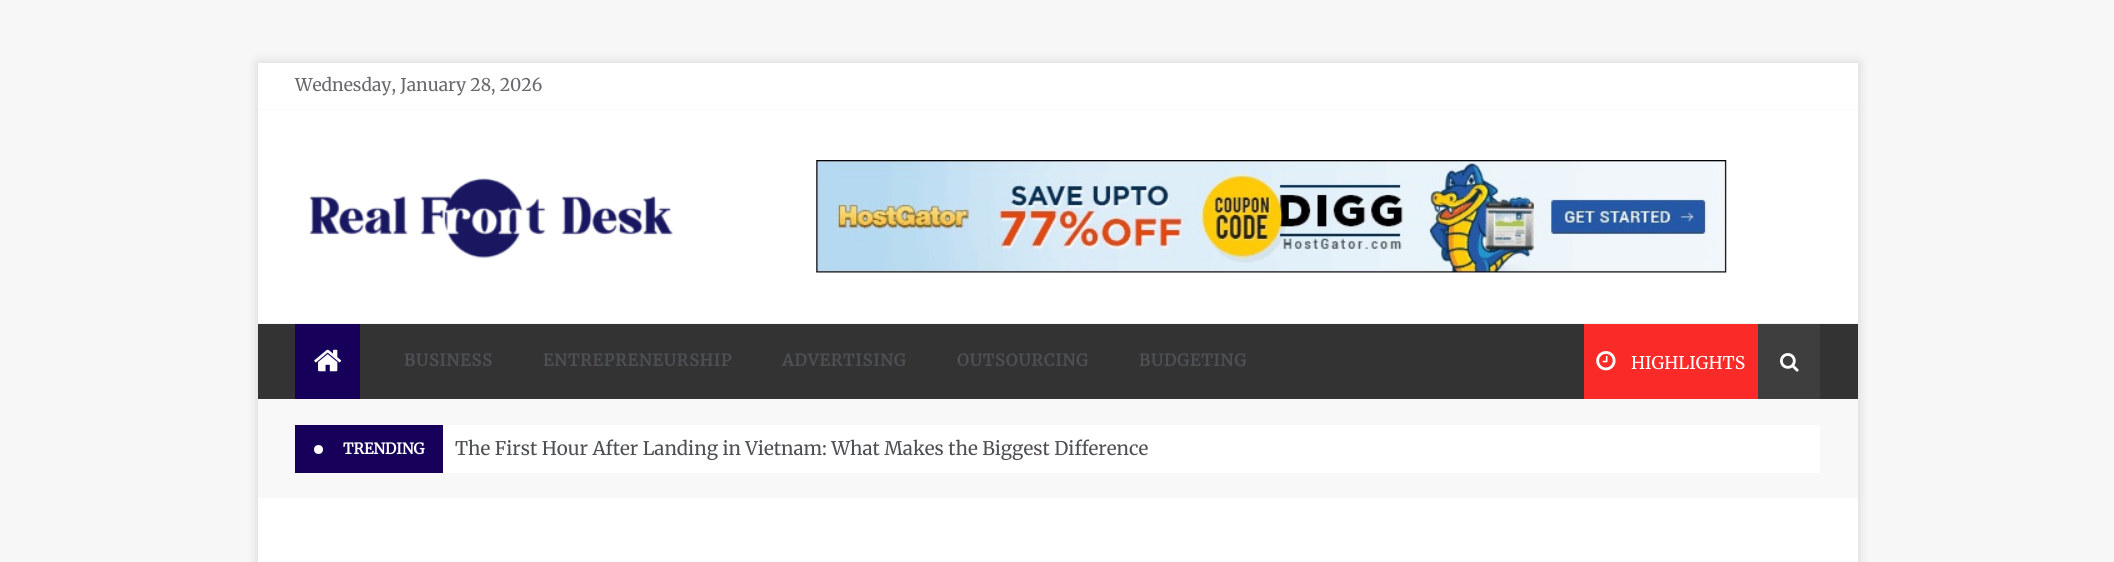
#include <cairo.h>
#include <math.h>
#include <stddef.h>

typedef struct { double x, y; const char *s; } line_t;
typedef struct { double x, y, w, h; unsigned color; } box_t;

static void ink(cairo_t *ctx, unsigned color) {
    cairo_set_source_rgb(ctx, (color >> 16) / 255.0, (color >> 8 & 255) / 255.0, (color & 255) / 255.0);
}

static void write_spaced(cairo_t *ctx, double x, double y, const char *s, double letter, double word) {
    cairo_move_to(ctx, x, y);
    while (*s) {
        char ch[5] = {0};
        int n = 0;
        do ch[n++] = *s++; while ((*s & 0xC0) == 0x80);
        cairo_show_text(ctx, ch);
        cairo_rel_move_to(ctx, letter + word * (*ch == ' '), 0);
    }
}

static void round_path(cairo_t *ctx, double x, double y, double w, double h, double r) {
    cairo_new_sub_path(ctx);
    cairo_arc(ctx, x + w - r, y + h - r, r, 0, M_PI / 2);
    cairo_arc(ctx, x + r, y + h - r, r, M_PI / 2, M_PI);
    cairo_arc(ctx, x + r, y + r, r, M_PI, 1.5 * M_PI);
    cairo_arc(ctx, x + w - r, y + r, r, 1.5 * M_PI, 2 * M_PI);
    cairo_close_path(ctx);
}

static void blur_box(cairo_t *ctx, double x, double y, double w, double h, double r, double blur, double alpha) {
    cairo_push_group_with_content(ctx, CAIRO_CONTENT_ALPHA);
    cairo_set_operator(ctx, CAIRO_OPERATOR_SOURCE);
    for (int i = 15; i >= -15 && fmin(w, h) + blur * i / 3 > 0; i -= 2) {
        double e = blur * i / 6;
        cairo_set_source_rgba(ctx, 0, 0, 0, alpha * erfc((i - 1) / 8.5) / 2);
        round_path(ctx, x - e, y - e, w + 2 * e, h + 2 * e, fmax(0, fmin(r + e + blur * .6, fmin(w, h) / 2 + e)));
        cairo_fill(ctx);
    }
    cairo_pattern_t *soft = cairo_pop_group(ctx);
    cairo_mask(ctx, soft);
    cairo_pattern_destroy(soft);
}

static void paste(cairo_t *ctx, const char *path, double x, double y, double w, double h) {
    cairo_surface_t *image = cairo_image_surface_create_from_png(path);
    cairo_save(ctx);
    cairo_set_source_surface(ctx, image, x, y);
    cairo_rectangle(ctx, x, y, w, h);
    cairo_fill(ctx);
    cairo_restore(ctx);
    cairo_surface_destroy(image);
}

int main(void) {
    cairo_surface_t *surface = cairo_image_surface_create(CAIRO_FORMAT_RGB24, 2114, 562);
    cairo_t *ctx = cairo_create(surface);
    cairo_font_options_t *options = cairo_font_options_create();
    cairo_font_options_set_hint_metrics(options, CAIRO_HINT_METRICS_OFF);
    cairo_font_options_set_hint_style(options, CAIRO_HINT_STYLE_NONE);
    cairo_set_font_options(ctx, options);
    cairo_set_miter_limit(ctx, 4);
    ink(ctx, 0xF7F7F7);
    cairo_paint(ctx);
    ink(ctx, 0x000000);
    blur_box(ctx, 258, 63, 1600, 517, 0, 6, 0.15);
    ink(ctx, 0xFFFFFF);
    cairo_rectangle(ctx, 258, 63, 1600, 499);
    cairo_fill(ctx);
    ink(ctx, 0xFAFAFA);
    cairo_rectangle(ctx, 258, 109, 1600, 1);
    cairo_fill(ctx);
    cairo_select_font_face(ctx, "Merriweather Light", CAIRO_FONT_SLANT_NORMAL, CAIRO_FONT_WEIGHT_NORMAL);
    cairo_set_font_size(ctx, 17.5);
    ink(ctx, 0x67696D);
    cairo_move_to(ctx, 295, 91);
    cairo_show_text(ctx, "Wednesday, January 28, 2026");
    ink(ctx, 0xFAFAFA);
    cairo_rectangle(ctx, 258, 399, 1600, 1);
    cairo_fill(ctx);
    ink(ctx, 0xF2F2F2);
    cairo_rectangle(ctx, 258, 323, 1600, 1);
    cairo_fill(ctx);
    paste(ctx, "media/1.png", 309, 178, 364, 80);
    paste(ctx, "media/2.png", 816, 160, 911, 113);
    ink(ctx, 0x333333);
    cairo_rectangle(ctx, 258, 324, 1600, 75);
    cairo_fill(ctx);
    ink(ctx, 0x160059);
    cairo_rectangle(ctx, 295, 324, 65, 75);
    cairo_fill(ctx);
    paste(ctx, "media/3.png", 314, 349, 28, 23);
    cairo_select_font_face(ctx, "Merriweather", CAIRO_FONT_SLANT_NORMAL, CAIRO_FONT_WEIGHT_BOLD);
    cairo_set_font_size(ctx, 16.25);
    ink(ctx, 0x4C4F53);
    {
        static const line_t items[] = {
            {404, 366, "BUSINESS"},
            {543, 366, "ENTREPRENEURSHIP"},
            {782, 366, "ADVERTISING"},
            {957, 366, "OUTSOURCING"},
            {1139, 366, "BUDGETING"},
        };
        for (size_t i = 0; i < sizeof items / sizeof *items; i++) {
            write_spaced(ctx, items[i].x, items[i].y, items[i].s, 1, 0);
        }
    }
    ink(ctx, 0xF92A28);
    cairo_rectangle(ctx, 1584, 324, 174, 75);
    cairo_fill(ctx);
    paste(ctx, "media/4.png", 1596, 351, 20, 20);
    cairo_select_font_face(ctx, "Merriweather Light", CAIRO_FONT_SLANT_NORMAL, CAIRO_FONT_WEIGHT_NORMAL);
    cairo_set_font_size(ctx, 17.5);
    ink(ctx, 0xFFFFFF);
    cairo_move_to(ctx, 1631, 369);
    cairo_show_text(ctx, "HIGHLIGHTS");
    ink(ctx, 0x3E3E3E);
    cairo_rectangle(ctx, 1758, 324, 62, 75);
    cairo_fill(ctx);
    paste(ctx, "media/5.png", 1780, 353, 19, 19);
    {
        static const box_t items[] = {
            {258, 400, 1600, 98, 0xF8F8F8},
            {443, 425, 1377, 48, 0xFFFFFF},
            {295, 425, 148, 48, 0x160059},
        };
        for (size_t i = 0; i < sizeof items / sizeof *items; i++) {
            ink(ctx, items[i].color);
            cairo_rectangle(ctx, items[i].x, items[i].y, items[i].w, items[i].h);
            cairo_fill(ctx);
        }
    }
    ink(ctx, 0xFFFFFF);
    cairo_arc(ctx, 318.5, 449.5, 4.5, 0, 2 * M_PI);
    cairo_fill(ctx);
    cairo_select_font_face(ctx, "Merriweather", CAIRO_FONT_SLANT_NORMAL, CAIRO_FONT_WEIGHT_BOLD);
    cairo_set_font_size(ctx, 15);
    cairo_move_to(ctx, 343, 454);
    cairo_show_text(ctx, "TRENDING");
    cairo_select_font_face(ctx, "Merriweather Light", CAIRO_FONT_SLANT_NORMAL, CAIRO_FONT_WEIGHT_NORMAL);
    cairo_set_font_size(ctx, 18.75);
    ink(ctx, 0x4C4F53);
    cairo_move_to(ctx, 455, 455);
    cairo_show_text(ctx, "The First Hour After Landing in Vietnam: What Makes the Biggest Difference");
    cairo_surface_write_to_png(surface, "image.png");
    cairo_font_options_destroy(options);
    cairo_destroy(ctx);
    cairo_surface_destroy(surface);
    return 0;
}
